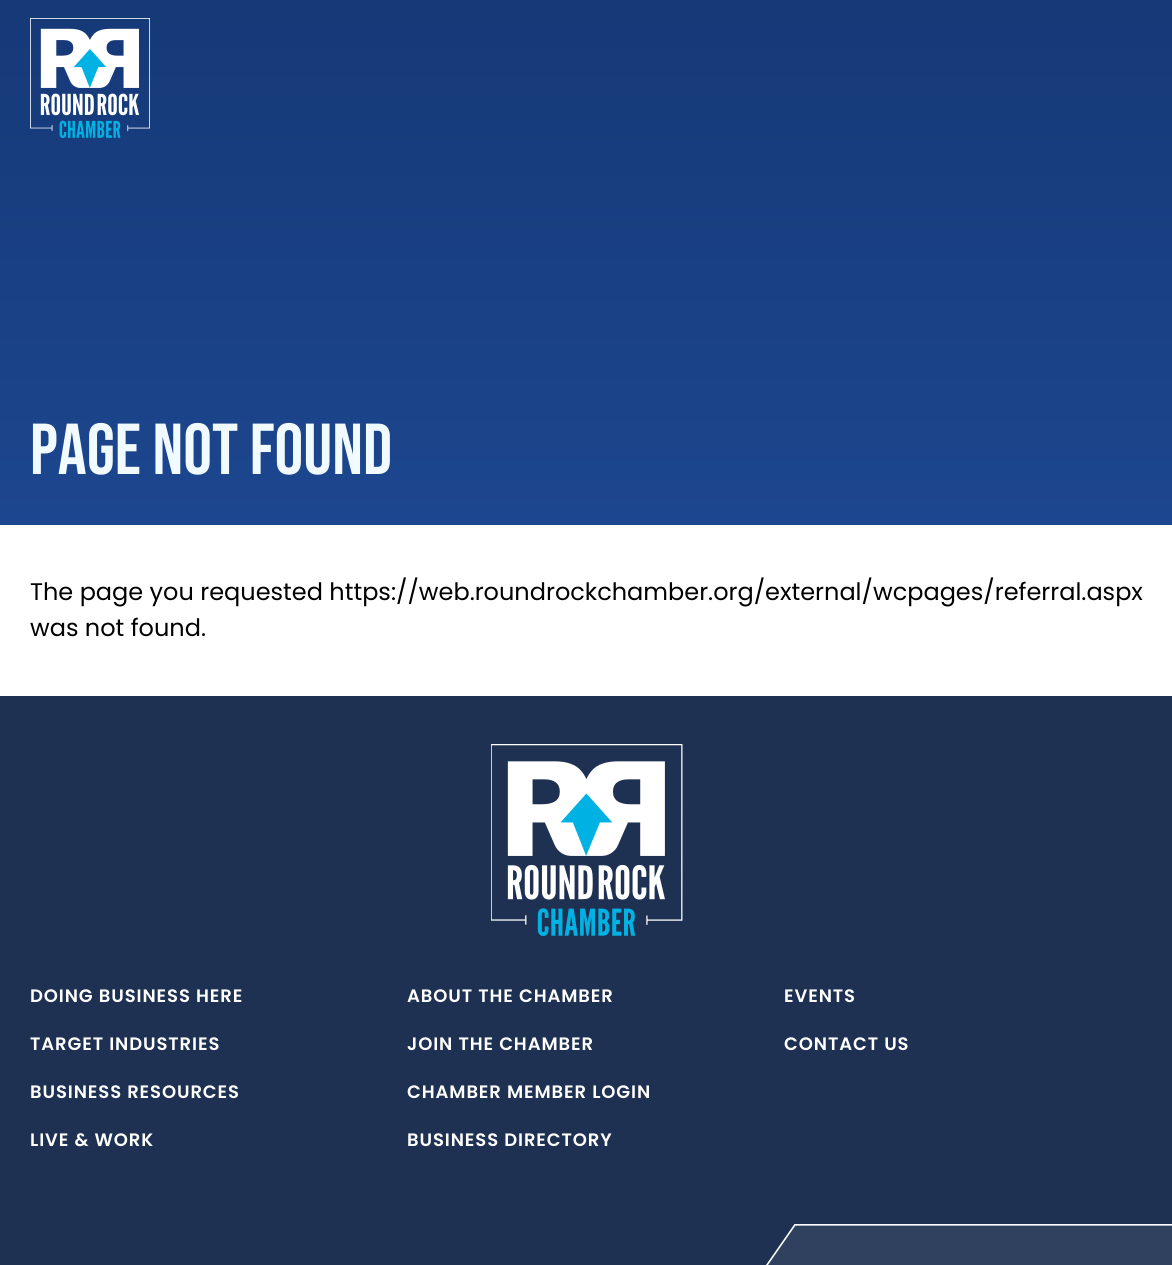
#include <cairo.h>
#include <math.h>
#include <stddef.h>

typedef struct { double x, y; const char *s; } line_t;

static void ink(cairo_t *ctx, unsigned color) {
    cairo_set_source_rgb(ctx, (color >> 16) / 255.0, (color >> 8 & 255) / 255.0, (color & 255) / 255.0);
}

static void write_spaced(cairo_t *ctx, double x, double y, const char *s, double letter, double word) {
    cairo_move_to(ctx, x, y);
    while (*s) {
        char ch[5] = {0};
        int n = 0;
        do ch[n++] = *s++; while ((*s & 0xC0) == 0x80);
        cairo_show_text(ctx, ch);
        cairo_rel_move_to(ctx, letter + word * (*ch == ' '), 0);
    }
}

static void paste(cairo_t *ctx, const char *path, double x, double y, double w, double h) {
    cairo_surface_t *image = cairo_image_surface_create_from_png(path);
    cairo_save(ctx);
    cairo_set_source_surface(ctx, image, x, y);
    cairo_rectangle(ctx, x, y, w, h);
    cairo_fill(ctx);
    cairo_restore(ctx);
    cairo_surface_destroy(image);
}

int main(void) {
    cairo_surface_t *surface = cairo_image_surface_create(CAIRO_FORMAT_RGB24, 1172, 1265);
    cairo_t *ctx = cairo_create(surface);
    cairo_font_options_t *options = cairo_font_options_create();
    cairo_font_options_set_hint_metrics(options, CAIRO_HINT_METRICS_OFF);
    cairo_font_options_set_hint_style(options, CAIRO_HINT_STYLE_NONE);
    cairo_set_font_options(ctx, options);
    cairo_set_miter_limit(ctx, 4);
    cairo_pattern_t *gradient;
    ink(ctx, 0xFFFFFF);
    cairo_paint(ctx);
    gradient = cairo_pattern_create_linear(587, 0, 587, 525);
    cairo_pattern_add_color_stop_rgba(gradient, 0, 0.086, 0.224, 0.467, 1);
    cairo_pattern_add_color_stop_rgba(gradient, 1, 0.11, 0.275, 0.561, 1);
    cairo_set_source(ctx, gradient);
    cairo_pattern_destroy(gradient);
    cairo_rectangle(ctx, 0, 0, 1172, 525);
    cairo_fill(ctx);
    paste(ctx, "media/1.png", 30, 18, 120, 120);
    cairo_select_font_face(ctx, "Bebas Neue", CAIRO_FONT_SLANT_NORMAL, CAIRO_FONT_WEIGHT_NORMAL);
    cairo_set_font_size(ctx, 72);
    ink(ctx, 0xF1FBFF);
    cairo_move_to(ctx, 30, 474);
    cairo_show_text(ctx, "Page Not Found");
    cairo_select_font_face(ctx, "Poppins", CAIRO_FONT_SLANT_NORMAL, CAIRO_FONT_WEIGHT_NORMAL);
    cairo_set_font_size(ctx, 24);
    ink(ctx, 0x000000);
    cairo_move_to(ctx, 30, 600);
    cairo_show_text(ctx, "The page you requested https://web.roundrockchamber.org/external/wcpages/referral.aspx");
    cairo_move_to(ctx, 30, 636);
    cairo_show_text(ctx, "was not found.");
    ink(ctx, 0x1E3152);
    cairo_rectangle(ctx, 0, 696, 1172, 569);
    cairo_fill(ctx);
    paste(ctx, "media/2.png", 491, 744, 192, 192);
    cairo_select_font_face(ctx, "Poppins SemiBold", CAIRO_FONT_SLANT_NORMAL, CAIRO_FONT_WEIGHT_NORMAL);
    cairo_set_font_size(ctx, 18);
    ink(ctx, 0xFFFFFF);
    {
        static const line_t items[] = {
            {30, 1002, "DOING BUSINESS HERE"},
            {407, 1002, "ABOUT THE CHAMBER"},
            {784, 1002, "EVENTS"},
            {30, 1050, "TARGET INDUSTRIES"},
            {407, 1050, "JOIN THE CHAMBER"},
            {784, 1050, "CONTACT US"},
            {30, 1098, "BUSINESS RESOURCES"},
            {407, 1098, "CHAMBER MEMBER LOGIN"},
            {30, 1146, "LIVE & WORK"},
            {407, 1146, "BUSINESS DIRECTORY"},
        };
        for (size_t i = 0; i < sizeof items / sizeof *items; i++) {
            write_spaced(ctx, items[i].x, items[i].y, items[i].s, 0.9, 0);
        }
    }
    paste(ctx, "media/3.png", 766, 1224, 406, 41);
    cairo_surface_write_to_png(surface, "image.png");
    cairo_font_options_destroy(options);
    cairo_destroy(ctx);
    cairo_surface_destroy(surface);
    return 0;
}
